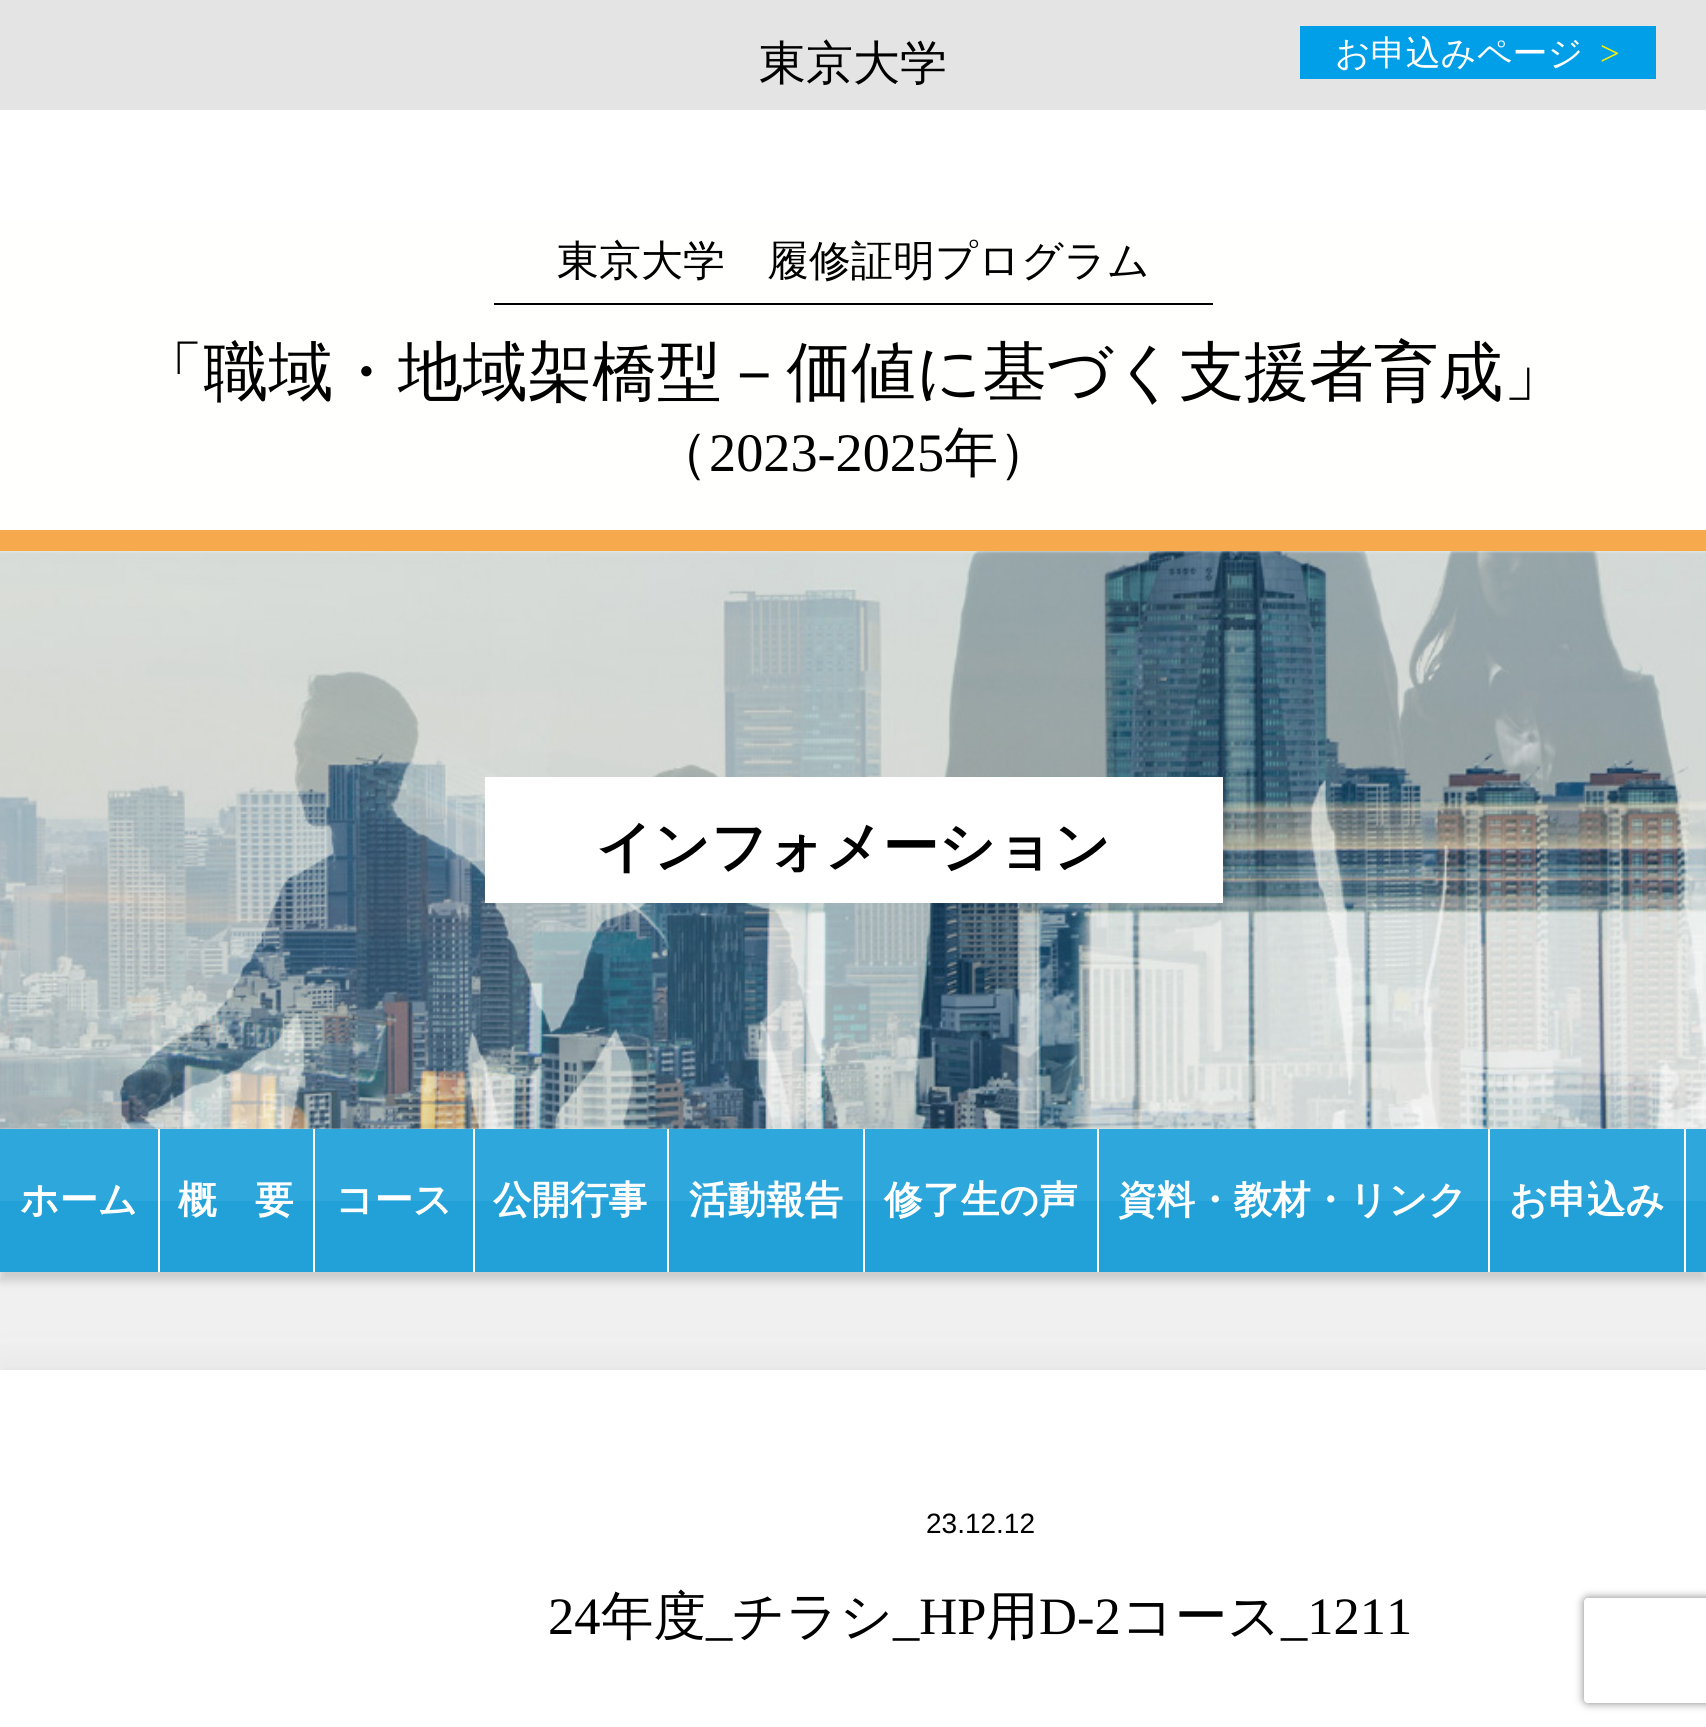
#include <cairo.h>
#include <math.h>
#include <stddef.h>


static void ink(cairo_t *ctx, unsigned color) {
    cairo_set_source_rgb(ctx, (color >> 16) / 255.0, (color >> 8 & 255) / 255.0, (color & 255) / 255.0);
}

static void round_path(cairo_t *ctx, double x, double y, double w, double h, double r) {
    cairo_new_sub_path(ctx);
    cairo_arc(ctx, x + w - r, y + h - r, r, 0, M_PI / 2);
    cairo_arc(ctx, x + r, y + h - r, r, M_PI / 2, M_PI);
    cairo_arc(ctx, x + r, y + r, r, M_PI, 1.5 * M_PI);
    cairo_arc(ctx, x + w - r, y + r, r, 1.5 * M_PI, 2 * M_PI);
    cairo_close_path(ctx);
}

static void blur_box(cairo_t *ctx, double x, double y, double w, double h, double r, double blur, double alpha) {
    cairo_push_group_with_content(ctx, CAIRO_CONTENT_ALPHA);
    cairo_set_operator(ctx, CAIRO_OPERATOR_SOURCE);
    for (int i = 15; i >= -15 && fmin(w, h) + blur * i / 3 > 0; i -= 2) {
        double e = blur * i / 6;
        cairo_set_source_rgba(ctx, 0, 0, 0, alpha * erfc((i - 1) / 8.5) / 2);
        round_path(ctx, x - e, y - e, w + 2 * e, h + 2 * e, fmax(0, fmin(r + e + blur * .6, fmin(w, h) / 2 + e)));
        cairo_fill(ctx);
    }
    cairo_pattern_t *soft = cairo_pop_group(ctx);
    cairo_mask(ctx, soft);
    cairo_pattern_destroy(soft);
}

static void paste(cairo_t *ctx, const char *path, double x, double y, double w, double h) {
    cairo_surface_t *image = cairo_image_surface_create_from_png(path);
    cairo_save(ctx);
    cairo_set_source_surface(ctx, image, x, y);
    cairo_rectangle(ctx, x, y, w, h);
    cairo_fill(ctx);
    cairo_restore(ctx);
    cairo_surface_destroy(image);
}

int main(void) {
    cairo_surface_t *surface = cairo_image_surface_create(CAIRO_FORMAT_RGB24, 1706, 1727);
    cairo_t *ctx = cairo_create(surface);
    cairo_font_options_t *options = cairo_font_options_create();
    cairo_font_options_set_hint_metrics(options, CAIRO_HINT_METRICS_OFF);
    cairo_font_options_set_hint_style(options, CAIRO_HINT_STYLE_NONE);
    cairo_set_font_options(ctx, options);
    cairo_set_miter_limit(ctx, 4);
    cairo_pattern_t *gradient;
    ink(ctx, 0xF0F0F0);
    cairo_paint(ctx);
    ink(ctx, 0xE4E4E4);
    cairo_rectangle(ctx, 0, 0, 1706, 110);
    cairo_fill(ctx);
    cairo_select_font_face(ctx, "WenQuanYi Zen Hei Medium", CAIRO_FONT_SLANT_NORMAL, CAIRO_FONT_WEIGHT_NORMAL);
    cairo_set_font_size(ctx, 47);
    ink(ctx, 0x000000);
    cairo_move_to(ctx, 759, 79);
    cairo_show_text(ctx, "東京大学");
    ink(ctx, 0x009FE8);
    cairo_rectangle(ctx, 1300, 26, 356, 53);
    cairo_fill(ctx);
    cairo_set_font_size(ctx, 35);
    ink(ctx, 0xFFFFFF);
    cairo_move_to(ctx, 1335, 65);
    cairo_show_text(ctx, "お申込みページ");
    cairo_select_font_face(ctx, "Liberation Serif", CAIRO_FONT_SLANT_NORMAL, CAIRO_FONT_WEIGHT_NORMAL);
    ink(ctx, 0xFFF000);
    cairo_move_to(ctx, 1600, 65);
    cairo_show_text(ctx, ">");
    gradient = cairo_pattern_create_linear(853, 551, 853, 110);
    cairo_pattern_add_color_stop_rgba(gradient, 0, 1, 1, 0.992, 1);
    cairo_pattern_add_color_stop_rgba(gradient, 1, 1, 1, 1, 1);
    cairo_set_source(ctx, gradient);
    cairo_pattern_destroy(gradient);
    cairo_rectangle(ctx, 0, 110, 1706, 420);
    cairo_fill(ctx);
    ink(ctx, 0x000000);
    cairo_rectangle(ctx, 494, 303, 719, 2);
    cairo_fill(ctx);
    cairo_select_font_face(ctx, "WenQuanYi Zen Hei Medium", CAIRO_FONT_SLANT_NORMAL, CAIRO_FONT_WEIGHT_NORMAL);
    cairo_set_font_size(ctx, 42);
    cairo_move_to(ctx, 557, 275);
    cairo_show_text(ctx, "東京大学　履修証明プログラム");
    cairo_set_font_size(ctx, 64.75);
    cairo_move_to(ctx, 139, 394);
    cairo_show_text(ctx, "「職域・地域架橋型－価値に基づく支援者育成」");
    cairo_set_font_size(ctx, 54.25);
    cairo_move_to(ctx, 654, 471);
    cairo_show_text(ctx, "（");
    cairo_select_font_face(ctx, "Liberation Serif", CAIRO_FONT_SLANT_NORMAL, CAIRO_FONT_WEIGHT_NORMAL);
    cairo_move_to(ctx, 709, 471);
    cairo_show_text(ctx, "2023-2025");
    cairo_select_font_face(ctx, "WenQuanYi Zen Hei Medium", CAIRO_FONT_SLANT_NORMAL, CAIRO_FONT_WEIGHT_NORMAL);
    cairo_move_to(ctx, 944, 471);
    cairo_show_text(ctx, "年）");
    ink(ctx, 0xF7A94D);
    cairo_rectangle(ctx, 0, 530, 1706, 21);
    cairo_fill(ctx);
    paste(ctx, "media/1.png", 0, 551, 1706, 578);
    ink(ctx, 0xFFFFFF);
    cairo_rectangle(ctx, 485, 777, 738, 126);
    cairo_fill(ctx);
    cairo_select_font_face(ctx, "WenQuanYi Zen Hei", CAIRO_FONT_SLANT_NORMAL, CAIRO_FONT_WEIGHT_BOLD);
    cairo_set_font_size(ctx, 56);
    ink(ctx, 0x000000);
    cairo_move_to(ctx, 596, 866);
    cairo_show_text(ctx, "インフォメーション");
    ink(ctx, 0xCCCCCC);
    blur_box(ctx, 0, 1138, 1706, 143, 0, 4.5, 1);
    ink(ctx, 0x22A1D8);
    cairo_rectangle(ctx, 0, 1201, 1706, 71);
    cairo_fill(ctx);
    ink(ctx, 0x2EA7DC);
    cairo_rectangle(ctx, 0, 1129, 1706, 72);
    cairo_fill(ctx);
    cairo_set_font_size(ctx, 38.5);
    ink(ctx, 0xFFFFFF);
    cairo_move_to(ctx, 20, 1213);
    cairo_show_text(ctx, "ホーム");
    cairo_rectangle(ctx, 158, 1129, 2, 143);
    cairo_fill(ctx);
    cairo_move_to(ctx, 178, 1213);
    cairo_show_text(ctx, "概　要");
    cairo_rectangle(ctx, 313, 1129, 2, 143);
    cairo_fill(ctx);
    cairo_move_to(ctx, 335, 1213);
    cairo_show_text(ctx, "コース");
    cairo_rectangle(ctx, 473, 1129, 2, 143);
    cairo_fill(ctx);
    cairo_move_to(ctx, 493, 1213);
    cairo_show_text(ctx, "公開行事");
    cairo_rectangle(ctx, 667, 1129, 2, 143);
    cairo_fill(ctx);
    cairo_move_to(ctx, 689, 1213);
    cairo_show_text(ctx, "活動報告");
    cairo_rectangle(ctx, 863, 1129, 2, 143);
    cairo_fill(ctx);
    cairo_move_to(ctx, 884, 1213);
    cairo_show_text(ctx, "修了生の声");
    cairo_rectangle(ctx, 1097, 1129, 2, 143);
    cairo_fill(ctx);
    cairo_move_to(ctx, 1118, 1213);
    cairo_show_text(ctx, "資料・教材・リンク");
    cairo_rectangle(ctx, 1488, 1129, 2, 143);
    cairo_fill(ctx);
    cairo_move_to(ctx, 1509, 1213);
    cairo_show_text(ctx, "お申込み");
    cairo_rectangle(ctx, 1684, 1129, 2, 143);
    cairo_fill(ctx);
    ink(ctx, 0xE0E0E0);
    blur_box(ctx, 0, 1370, 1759, 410, 0, 17.5, 1);
    ink(ctx, 0xFFFFFF);
    cairo_rectangle(ctx, 0, 1370, 1706, 357);
    cairo_fill(ctx);
    cairo_select_font_face(ctx, "Liberation Sans", CAIRO_FONT_SLANT_NORMAL, CAIRO_FONT_WEIGHT_NORMAL);
    cairo_set_font_size(ctx, 28);
    ink(ctx, 0x000000);
    cairo_move_to(ctx, 926, 1533);
    cairo_show_text(ctx, "23.12.12");
    cairo_select_font_face(ctx, "Liberation Serif", CAIRO_FONT_SLANT_NORMAL, CAIRO_FONT_WEIGHT_NORMAL);
    cairo_set_font_size(ctx, 52.5);
    cairo_move_to(ctx, 548, 1634);
    cairo_show_text(ctx, "24");
    cairo_select_font_face(ctx, "WenQuanYi Zen Hei Medium", CAIRO_FONT_SLANT_NORMAL, CAIRO_FONT_WEIGHT_NORMAL);
    cairo_move_to(ctx, 601, 1634);
    cairo_show_text(ctx, "年度");
    cairo_move_to(ctx, 732, 1634);
    cairo_show_text(ctx, "チラシ");
    cairo_select_font_face(ctx, "Liberation Serif", CAIRO_FONT_SLANT_NORMAL, CAIRO_FONT_WEIGHT_NORMAL);
    cairo_move_to(ctx, 893, 1634);
    cairo_show_text(ctx, "_HP");
    cairo_select_font_face(ctx, "WenQuanYi Zen Hei Medium", CAIRO_FONT_SLANT_NORMAL, CAIRO_FONT_WEIGHT_NORMAL);
    cairo_move_to(ctx, 986, 1634);
    cairo_show_text(ctx, "用");
    cairo_select_font_face(ctx, "Liberation Serif", CAIRO_FONT_SLANT_NORMAL, CAIRO_FONT_WEIGHT_NORMAL);
    cairo_move_to(ctx, 1039, 1634);
    cairo_show_text(ctx, "D-2");
    cairo_select_font_face(ctx, "WenQuanYi Zen Hei Medium", CAIRO_FONT_SLANT_NORMAL, CAIRO_FONT_WEIGHT_NORMAL);
    cairo_move_to(ctx, 1121, 1634);
    cairo_show_text(ctx, "コース");
    cairo_select_font_face(ctx, "Liberation Serif", CAIRO_FONT_SLANT_NORMAL, CAIRO_FONT_WEIGHT_NORMAL);
    cairo_move_to(ctx, 1281, 1634);
    cairo_show_text(ctx, "_1211");
    cairo_move_to(ctx, 706, 1634);
    cairo_show_text(ctx, "_");
    cairo_save(ctx);
    cairo_set_fill_rule(ctx, CAIRO_FILL_RULE_EVEN_ODD);
    cairo_new_path(ctx);
    cairo_move_to(ctx, 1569, 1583);
    cairo_line_to(ctx, 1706, 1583);
    cairo_line_to(ctx, 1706, 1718);
    cairo_line_to(ctx, 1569, 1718);
    cairo_close_path(ctx);
    cairo_move_to(ctx, 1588, 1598);
    cairo_line_to(ctx, 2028, 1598);
    cairo_curve_to(ctx, 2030, 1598, 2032, 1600, 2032, 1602);
    cairo_line_to(ctx, 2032, 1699);
    cairo_curve_to(ctx, 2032, 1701, 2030, 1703, 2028, 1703);
    cairo_line_to(ctx, 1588, 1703);
    cairo_curve_to(ctx, 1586, 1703, 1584, 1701, 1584, 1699);
    cairo_line_to(ctx, 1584, 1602);
    cairo_curve_to(ctx, 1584, 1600, 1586, 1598, 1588, 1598);
    cairo_close_path(ctx);
    cairo_clip(ctx);
    ink(ctx, 0x808080);
    blur_box(ctx, 1584, 1598, 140, 105, 4, 4.5, 1);
    cairo_restore(ctx);
    cairo_surface_write_to_png(surface, "image.png");
    cairo_font_options_destroy(options);
    cairo_destroy(ctx);
    cairo_surface_destroy(surface);
    return 0;
}
